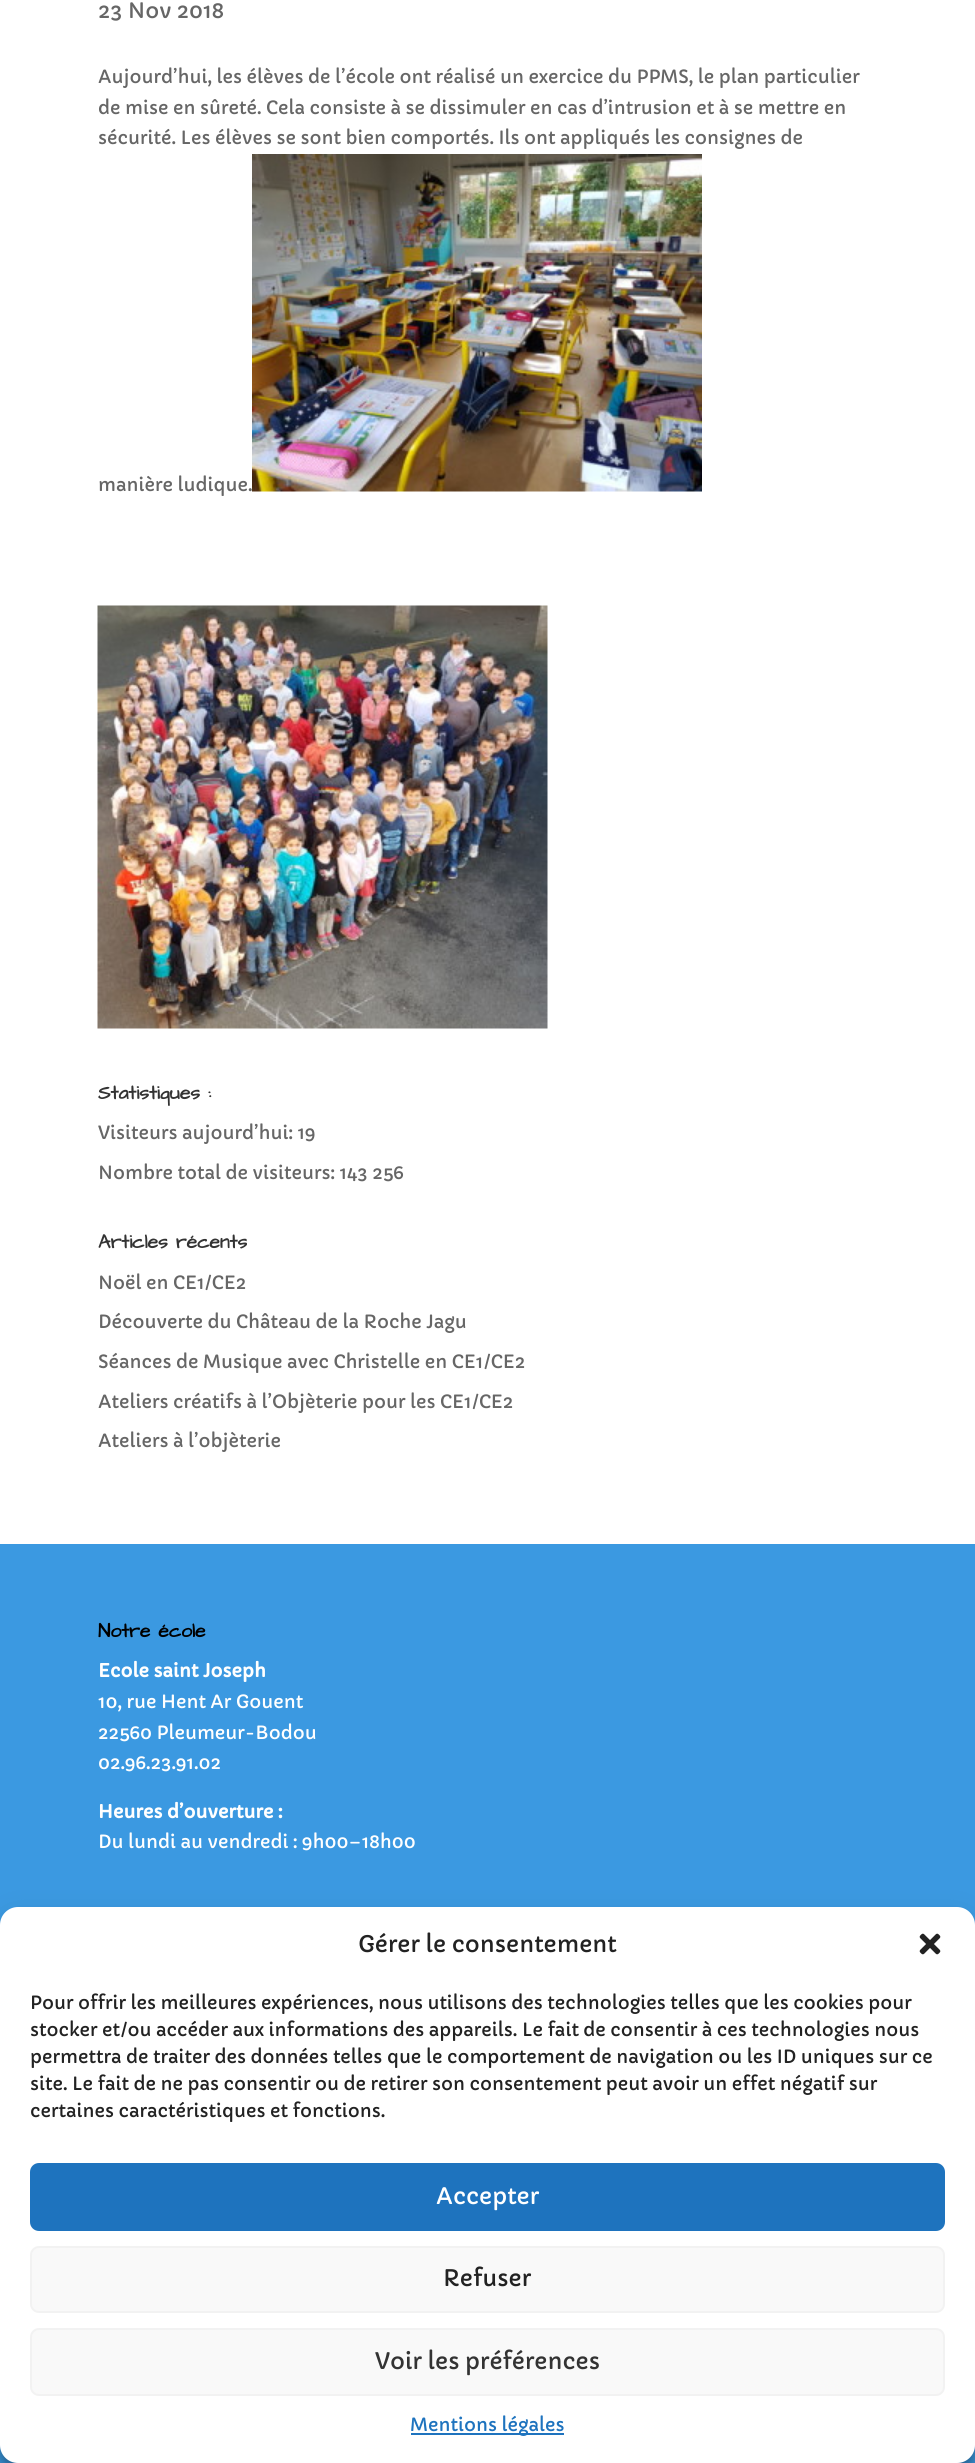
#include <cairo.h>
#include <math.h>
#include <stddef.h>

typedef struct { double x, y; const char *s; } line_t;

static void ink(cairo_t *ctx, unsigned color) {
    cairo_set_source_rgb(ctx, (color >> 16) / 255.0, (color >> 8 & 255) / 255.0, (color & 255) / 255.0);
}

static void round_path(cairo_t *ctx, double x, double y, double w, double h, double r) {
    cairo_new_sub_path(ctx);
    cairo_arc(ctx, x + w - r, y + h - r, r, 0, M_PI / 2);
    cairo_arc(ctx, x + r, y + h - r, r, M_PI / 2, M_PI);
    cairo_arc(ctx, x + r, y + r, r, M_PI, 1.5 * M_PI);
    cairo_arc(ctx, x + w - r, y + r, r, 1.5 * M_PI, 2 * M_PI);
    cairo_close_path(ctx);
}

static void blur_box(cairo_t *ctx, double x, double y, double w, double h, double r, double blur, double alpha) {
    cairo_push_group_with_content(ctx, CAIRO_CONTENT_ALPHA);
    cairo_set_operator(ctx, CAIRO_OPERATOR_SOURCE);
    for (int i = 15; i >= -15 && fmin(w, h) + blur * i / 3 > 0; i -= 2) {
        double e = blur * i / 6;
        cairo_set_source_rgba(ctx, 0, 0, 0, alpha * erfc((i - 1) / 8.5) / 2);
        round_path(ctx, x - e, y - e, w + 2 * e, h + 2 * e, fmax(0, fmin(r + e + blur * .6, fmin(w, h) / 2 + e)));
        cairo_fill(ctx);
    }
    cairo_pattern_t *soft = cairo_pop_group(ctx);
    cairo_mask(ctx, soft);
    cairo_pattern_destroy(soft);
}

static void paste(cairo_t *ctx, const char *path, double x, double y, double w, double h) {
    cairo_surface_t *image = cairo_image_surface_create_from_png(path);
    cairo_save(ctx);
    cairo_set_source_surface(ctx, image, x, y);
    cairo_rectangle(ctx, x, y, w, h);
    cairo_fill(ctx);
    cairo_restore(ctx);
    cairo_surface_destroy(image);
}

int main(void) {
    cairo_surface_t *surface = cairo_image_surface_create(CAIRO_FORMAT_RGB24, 975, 2463);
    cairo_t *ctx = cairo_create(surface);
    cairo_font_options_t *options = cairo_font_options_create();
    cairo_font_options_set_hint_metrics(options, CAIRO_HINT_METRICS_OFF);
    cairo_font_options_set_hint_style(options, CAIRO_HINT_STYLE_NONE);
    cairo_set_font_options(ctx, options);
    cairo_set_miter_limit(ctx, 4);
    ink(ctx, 0xFFFFFF);
    cairo_paint(ctx);
    cairo_select_font_face(ctx, "Capriola", CAIRO_FONT_SLANT_NORMAL, CAIRO_FONT_WEIGHT_NORMAL);
    cairo_set_font_size(ctx, 21);
    ink(ctx, 0x666666);
    cairo_move_to(ctx, 98, 18);
    cairo_show_text(ctx, "23 Nov 2018");
    cairo_set_font_size(ctx, 18);
    {
        static const line_t items[] = {
            {98, 83, "Aujourd’hui, les élèves de l’école ont réalisé un exercice du PPMS, le plan particulier"},
            {98, 114, "de mise en sûreté. Cela consiste à se dissimuler en cas d’intrusion et à se mettre en"},
            {98, 144, "sécurité. Les élèves se sont bien comportés. Ils ont appliqués les consignes de"},
            {98, 491, "manière ludique."},
        };
        for (size_t i = 0; i < sizeof items / sizeof *items; i++) {
            cairo_move_to(ctx, items[i].x, items[i].y);
            cairo_show_text(ctx, items[i].s);
        }
    }
    paste(ctx, "media/1.png", 252, 154, 450, 338);
    paste(ctx, "media/2.png", 97, 605, 451, 424);
    cairo_select_font_face(ctx, "Architects Daughter", CAIRO_FONT_SLANT_NORMAL, CAIRO_FONT_WEIGHT_BOLD);
    cairo_set_font_size(ctx, 19.5);
    ink(ctx, 0x333333);
    cairo_move_to(ctx, 98, 1099);
    cairo_show_text(ctx, "Statistiques :");
    cairo_select_font_face(ctx, "Capriola", CAIRO_FONT_SLANT_NORMAL, CAIRO_FONT_WEIGHT_NORMAL);
    cairo_set_font_size(ctx, 18);
    ink(ctx, 0x666666);
    cairo_move_to(ctx, 98, 1139);
    cairo_show_text(ctx, "Visiteurs aujourd’hui: 19");
    cairo_move_to(ctx, 98, 1179);
    cairo_show_text(ctx, "Nombre total de visiteurs: 143 256");
    cairo_select_font_face(ctx, "Architects Daughter", CAIRO_FONT_SLANT_NORMAL, CAIRO_FONT_WEIGHT_BOLD);
    cairo_set_font_size(ctx, 19.5);
    ink(ctx, 0x333333);
    cairo_move_to(ctx, 98, 1248);
    cairo_show_text(ctx, "Articles récents");
    cairo_select_font_face(ctx, "Capriola", CAIRO_FONT_SLANT_NORMAL, CAIRO_FONT_WEIGHT_NORMAL);
    cairo_set_font_size(ctx, 18);
    ink(ctx, 0x666666);
    {
        static const line_t items[] = {
            {98, 1289, "Noël en CE1/CE2"},
            {98, 1328, "Découverte du Château de la Roche Jagu"},
            {98, 1368, "Séances de Musique avec Christelle en CE1/CE2"},
            {98, 1408, "Ateliers créatifs à l’Objèterie pour les CE1/CE2"},
            {98, 1447, "Ateliers à l’objèterie"},
        };
        for (size_t i = 0; i < sizeof items / sizeof *items; i++) {
            cairo_move_to(ctx, items[i].x, items[i].y);
            cairo_show_text(ctx, items[i].s);
        }
    }
    ink(ctx, 0x3B99E1);
    cairo_rectangle(ctx, 0, 1544, 975, 919);
    cairo_fill(ctx);
    cairo_select_font_face(ctx, "Architects Daughter", CAIRO_FONT_SLANT_NORMAL, CAIRO_FONT_WEIGHT_BOLD);
    cairo_set_font_size(ctx, 19.5);
    ink(ctx, 0x000000);
    cairo_move_to(ctx, 98, 1637);
    cairo_show_text(ctx, "Notre école");
    cairo_select_font_face(ctx, "Capriola", CAIRO_FONT_SLANT_NORMAL, CAIRO_FONT_WEIGHT_BOLD);
    cairo_set_font_size(ctx, 18);
    ink(ctx, 0xFFFFFF);
    cairo_move_to(ctx, 98, 1677);
    cairo_show_text(ctx, "Ecole saint Joseph");
    cairo_select_font_face(ctx, "Capriola", CAIRO_FONT_SLANT_NORMAL, CAIRO_FONT_WEIGHT_NORMAL);
    {
        static const line_t items[] = {
            {98, 1708, "10, rue Hent Ar Gouent"},
            {98, 1739, "22560 Pleumeur-Bodou"},
            {98, 1769, "02.96.23.91.02"},
        };
        for (size_t i = 0; i < sizeof items / sizeof *items; i++) {
            cairo_move_to(ctx, items[i].x, items[i].y);
            cairo_show_text(ctx, items[i].s);
        }
    }
    cairo_select_font_face(ctx, "Capriola", CAIRO_FONT_SLANT_NORMAL, CAIRO_FONT_WEIGHT_BOLD);
    cairo_move_to(ctx, 98, 1818);
    cairo_show_text(ctx, "Heures d’ouverture :");
    cairo_select_font_face(ctx, "Capriola", CAIRO_FONT_SLANT_NORMAL, CAIRO_FONT_WEIGHT_NORMAL);
    cairo_move_to(ctx, 98, 1848);
    cairo_show_text(ctx, "Du lundi au vendredi : 9h00–18h00");
    ink(ctx, 0x000000);
    blur_box(ctx, 0, 1916, 975, 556, 18, 4.5, 0.23);
    blur_box(ctx, 0, 1922, 975, 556, 18, 15, 0.19);
    ink(ctx, 0xFFFFFF);
    round_path(ctx, 0, 1907, 975, 556, 18);
    cairo_fill(ctx);
    cairo_set_font_size(ctx, 22.5);
    ink(ctx, 0x222222);
    cairo_move_to(ctx, 358, 1952);
    cairo_show_text(ctx, "Gérer le consentement");
    paste(ctx, "media/3.png", 919, 1933, 22, 22);
    cairo_set_font_size(ctx, 18);
    {
        static const line_t items[] = {
            {30, 2009, "Pour offrir les meilleures expériences, nous utilisons des technologies telles que les cookies pour"},
            {30, 2036, "stocker et/ou accéder aux informations des appareils. Le fait de consentir à ces technologies nous"},
            {30, 2063, "permettra de traiter des données telles que le comportement de navigation ou les ID uniques sur ce"},
            {30, 2090, "site. Le fait de ne pas consentir ou de retirer son consentement peut avoir un effet négatif sur"},
            {30, 2117, "certaines caractéristiques et fonctions."},
        };
        for (size_t i = 0; i < sizeof items / sizeof *items; i++) {
            cairo_move_to(ctx, items[i].x, items[i].y);
            cairo_show_text(ctx, items[i].s);
        }
    }
    ink(ctx, 0x1E73BE);
    round_path(ctx, 31, 2164, 913, 66, 8);
    cairo_fill_preserve(ctx);
    cairo_stroke(ctx);
    cairo_set_font_size(ctx, 22.5);
    ink(ctx, 0xFFFFFF);
    cairo_move_to(ctx, 436, 2204);
    cairo_show_text(ctx, "Accepter");
    ink(ctx, 0xF9F9F9);
    round_path(ctx, 31, 2247, 913, 65, 8);
    cairo_fill_preserve(ctx);
    ink(ctx, 0xF2F2F2);
    cairo_stroke(ctx);
    ink(ctx, 0x222222);
    cairo_move_to(ctx, 443, 2286);
    cairo_show_text(ctx, "Refuser");
    ink(ctx, 0xF9F9F9);
    round_path(ctx, 31, 2329, 913, 66, 8);
    cairo_fill_preserve(ctx);
    ink(ctx, 0xF2F2F2);
    cairo_stroke(ctx);
    ink(ctx, 0x333333);
    cairo_move_to(ctx, 375, 2369);
    cairo_show_text(ctx, "Voir les préférences");
    ink(ctx, 0x1E73BE);
    cairo_rectangle(ctx, 411, 2433, 153, 2);
    cairo_fill(ctx);
    cairo_set_font_size(ctx, 18);
    cairo_move_to(ctx, 410, 2431);
    cairo_show_text(ctx, "Mentions légales");
    cairo_surface_write_to_png(surface, "image.png");
    cairo_font_options_destroy(options);
    cairo_destroy(ctx);
    cairo_surface_destroy(surface);
    return 0;
}
